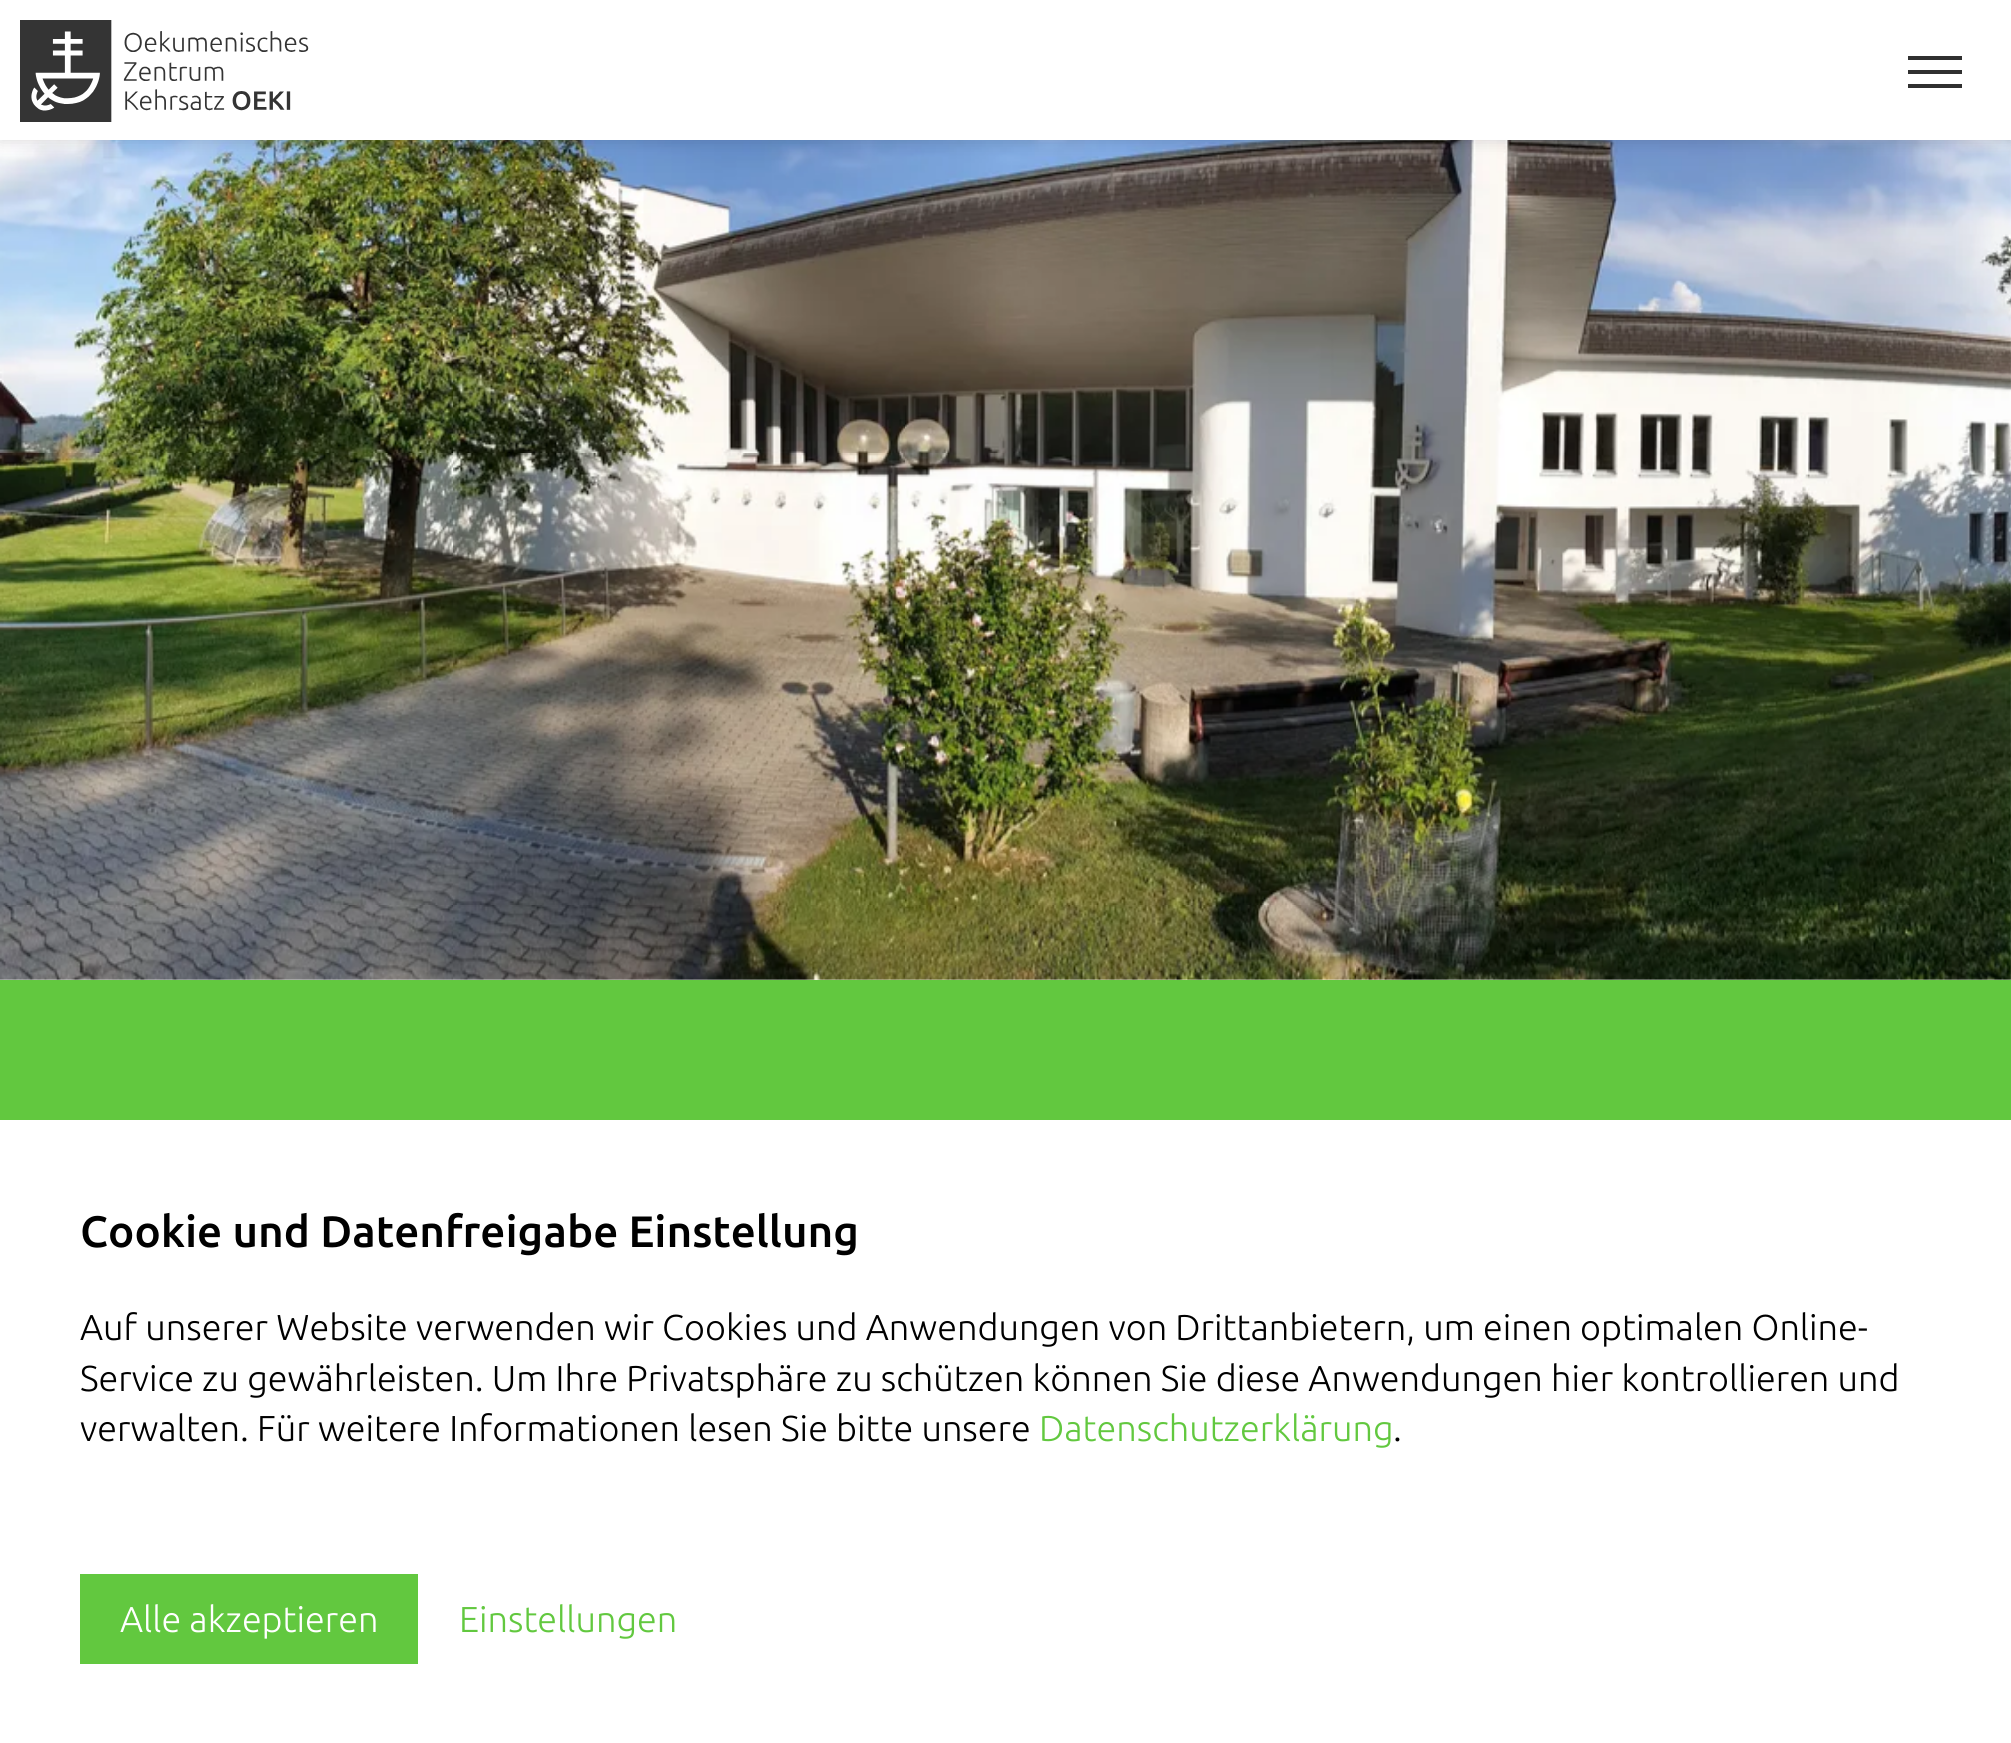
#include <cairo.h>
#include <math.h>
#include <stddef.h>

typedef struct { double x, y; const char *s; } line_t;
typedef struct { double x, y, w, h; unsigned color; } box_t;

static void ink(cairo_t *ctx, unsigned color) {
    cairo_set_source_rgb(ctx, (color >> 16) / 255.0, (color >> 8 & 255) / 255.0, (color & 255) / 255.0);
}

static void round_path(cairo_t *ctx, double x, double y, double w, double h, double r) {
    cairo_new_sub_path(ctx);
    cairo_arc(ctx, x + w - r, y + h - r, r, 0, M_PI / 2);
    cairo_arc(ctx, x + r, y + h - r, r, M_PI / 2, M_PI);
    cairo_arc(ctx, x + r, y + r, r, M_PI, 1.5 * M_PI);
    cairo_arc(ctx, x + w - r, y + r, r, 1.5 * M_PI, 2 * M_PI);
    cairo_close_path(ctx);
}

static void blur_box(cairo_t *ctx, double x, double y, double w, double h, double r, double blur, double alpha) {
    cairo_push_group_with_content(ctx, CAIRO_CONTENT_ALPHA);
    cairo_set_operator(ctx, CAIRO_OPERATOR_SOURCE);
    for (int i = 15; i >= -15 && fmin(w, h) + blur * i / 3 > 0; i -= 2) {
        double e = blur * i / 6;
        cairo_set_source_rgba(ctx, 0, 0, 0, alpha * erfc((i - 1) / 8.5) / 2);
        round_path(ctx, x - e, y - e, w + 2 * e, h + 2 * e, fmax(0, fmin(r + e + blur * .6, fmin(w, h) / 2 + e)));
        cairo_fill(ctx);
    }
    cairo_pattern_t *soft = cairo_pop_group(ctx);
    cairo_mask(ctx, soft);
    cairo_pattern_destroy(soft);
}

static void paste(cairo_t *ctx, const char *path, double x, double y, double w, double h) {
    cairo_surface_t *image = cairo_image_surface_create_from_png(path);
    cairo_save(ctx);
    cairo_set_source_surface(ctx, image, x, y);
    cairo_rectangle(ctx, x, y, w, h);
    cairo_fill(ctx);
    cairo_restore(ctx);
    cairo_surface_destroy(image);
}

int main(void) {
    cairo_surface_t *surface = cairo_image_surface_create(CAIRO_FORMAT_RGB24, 2011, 1743);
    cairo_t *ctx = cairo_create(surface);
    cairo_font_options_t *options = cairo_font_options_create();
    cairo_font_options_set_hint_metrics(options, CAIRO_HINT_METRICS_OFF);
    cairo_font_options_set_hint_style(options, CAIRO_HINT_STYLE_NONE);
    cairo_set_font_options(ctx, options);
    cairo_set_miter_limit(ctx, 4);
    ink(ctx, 0xF5F5F5);
    cairo_paint(ctx);
    paste(ctx, "media/2.png", 0, 140, 2011, 840);
    ink(ctx, 0x000000);
    blur_box(ctx, 0, 0, 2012, 140, 0, 8, 0.15);
    ink(ctx, 0xFFFFFF);
    cairo_rectangle(ctx, 0, 0, 2011, 140);
    cairo_fill(ctx);
    paste(ctx, "media/1.png", 20, 20, 289, 102);
    {
        static const box_t items[] = {
            {1908, 56, 54, 4, 0x303030},
            {1908, 70, 54, 4, 0x303030},
            {1908, 84, 54, 4, 0x303030},
            {0, 980, 2011, 140, 0x62C83F},
            {0, 1120, 2011, 623, 0xFFFFFF},
        };
        for (size_t i = 0; i < sizeof items / sizeof *items; i++) {
            ink(ctx, items[i].color);
            cairo_rectangle(ctx, items[i].x, items[i].y, items[i].w, items[i].h);
            cairo_fill(ctx);
        }
    }
    cairo_select_font_face(ctx, "Ubuntu Medium", CAIRO_FONT_SLANT_NORMAL, CAIRO_FONT_WEIGHT_NORMAL);
    cairo_set_font_size(ctx, 44);
    ink(ctx, 0x000000);
    cairo_move_to(ctx, 80, 1247);
    cairo_show_text(ctx, "Cookie und Datenfreigabe Einstellung");
    cairo_select_font_face(ctx, "Ubuntu Light", CAIRO_FONT_SLANT_NORMAL, CAIRO_FONT_WEIGHT_NORMAL);
    cairo_set_font_size(ctx, 36);
    {
        static const line_t items[] = {
            {80, 1340, "Auf unserer Website verwenden wir Cookies und Anwendungen von Drittanbietern, um einen optimalen Online-"},
            {80, 1391, "Service zu gewährleisten. Um Ihre Privatsphäre zu schützen können Sie diese Anwendungen hier kontrollieren und"},
            {80, 1441, "verwalten. Für weitere Informationen lesen Sie bitte unsere"},
        };
        for (size_t i = 0; i < sizeof items / sizeof *items; i++) {
            cairo_move_to(ctx, items[i].x, items[i].y);
            cairo_show_text(ctx, items[i].s);
        }
    }
    ink(ctx, 0x62C83F);
    cairo_move_to(ctx, 1039, 1441);
    cairo_show_text(ctx, "Datenschutzerklärung");
    ink(ctx, 0x000000);
    cairo_move_to(ctx, 1393, 1441);
    cairo_show_text(ctx, ".");
    ink(ctx, 0x62C83F);
    cairo_rectangle(ctx, 80, 1574, 338, 90);
    cairo_fill(ctx);
    ink(ctx, 0xFFFFFF);
    cairo_move_to(ctx, 120, 1632);
    cairo_show_text(ctx, "Alle akzeptieren");
    ink(ctx, 0x62C83F);
    cairo_move_to(ctx, 459, 1632);
    cairo_show_text(ctx, "Einstellungen");
    cairo_surface_write_to_png(surface, "image.png");
    cairo_font_options_destroy(options);
    cairo_destroy(ctx);
    cairo_surface_destroy(surface);
    return 0;
}
